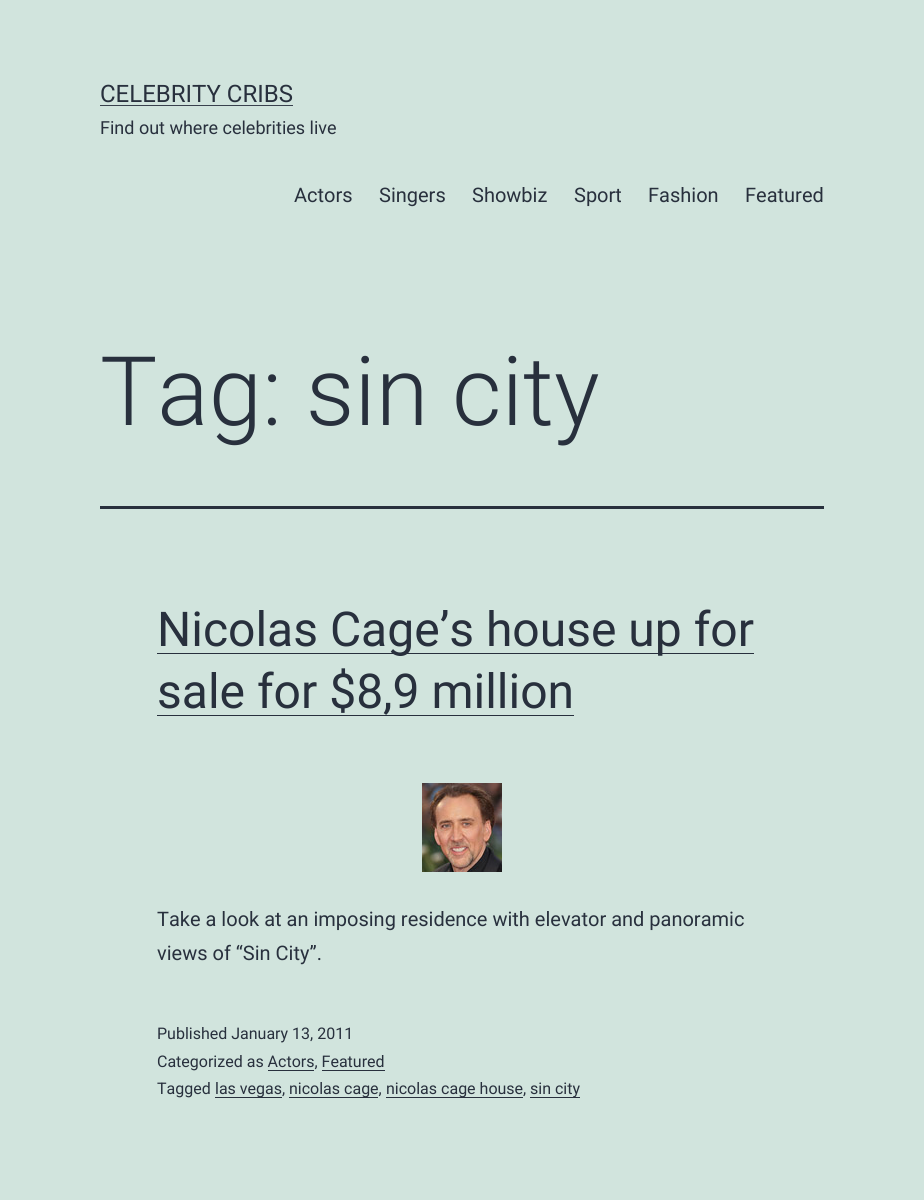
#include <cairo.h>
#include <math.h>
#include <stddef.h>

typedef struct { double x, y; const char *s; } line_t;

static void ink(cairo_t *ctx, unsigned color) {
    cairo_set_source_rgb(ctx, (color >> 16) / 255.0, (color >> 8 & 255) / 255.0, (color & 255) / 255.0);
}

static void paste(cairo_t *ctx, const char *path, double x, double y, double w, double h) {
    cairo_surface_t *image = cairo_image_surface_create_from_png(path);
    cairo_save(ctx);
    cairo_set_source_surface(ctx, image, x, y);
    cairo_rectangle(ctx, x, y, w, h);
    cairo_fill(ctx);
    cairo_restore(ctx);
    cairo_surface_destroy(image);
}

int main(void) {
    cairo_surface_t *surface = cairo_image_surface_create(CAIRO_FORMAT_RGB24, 924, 1200);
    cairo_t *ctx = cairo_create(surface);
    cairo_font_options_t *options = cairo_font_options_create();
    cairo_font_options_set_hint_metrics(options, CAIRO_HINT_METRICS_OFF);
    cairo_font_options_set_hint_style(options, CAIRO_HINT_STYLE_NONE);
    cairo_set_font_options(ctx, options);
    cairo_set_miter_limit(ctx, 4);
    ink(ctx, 0xD1E4DD);
    cairo_paint(ctx);
    cairo_select_font_face(ctx, "Roboto", CAIRO_FONT_SLANT_NORMAL, CAIRO_FONT_WEIGHT_NORMAL);
    cairo_set_font_size(ctx, 24);
    ink(ctx, 0x28303D);
    cairo_move_to(ctx, 100, 102);
    cairo_show_text(ctx, "CELEBRITY CRIBS");
    ink(ctx, 0x39414D);
    cairo_rectangle(ctx, 100, 105, 193, 1);
    cairo_fill(ctx);
    cairo_set_font_size(ctx, 18);
    ink(ctx, 0x28303D);
    cairo_move_to(ctx, 100, 134);
    cairo_show_text(ctx, "Find out where celebrities live");
    cairo_set_font_size(ctx, 20);
    {
        static const line_t items[] = {
            {294, 202, "Actors"},
            {379, 202, "Singers"},
            {472, 202, "Showbiz"},
            {574, 202, "Sport"},
            {648, 202, "Fashion"},
            {745, 202, "Featured"},
        };
        for (size_t i = 0; i < sizeof items / sizeof *items; i++) {
            cairo_move_to(ctx, items[i].x, items[i].y);
            cairo_show_text(ctx, items[i].s);
        }
    }
    cairo_rectangle(ctx, 100, 506, 724, 3);
    cairo_fill(ctx);
    cairo_select_font_face(ctx, "Roboto Light", CAIRO_FONT_SLANT_NORMAL, CAIRO_FONT_WEIGHT_NORMAL);
    cairo_set_font_size(ctx, 96);
    cairo_move_to(ctx, 100, 425);
    cairo_show_text(ctx, "Tag: sin city");
    cairo_rectangle(ctx, 157, 653, 597, 1);
    cairo_fill(ctx);
    cairo_select_font_face(ctx, "Roboto", CAIRO_FONT_SLANT_NORMAL, CAIRO_FONT_WEIGHT_NORMAL);
    cairo_set_font_size(ctx, 48);
    cairo_move_to(ctx, 157, 646);
    cairo_show_text(ctx, "Nicolas Cage’s house up for");
    cairo_move_to(ctx, 157, 708);
    cairo_show_text(ctx, "sale for $8,9 million");
    cairo_rectangle(ctx, 157, 715, 417, 1);
    cairo_fill(ctx);
    paste(ctx, "media/1.png", 422, 783, 80, 89);
    cairo_set_font_size(ctx, 20);
    cairo_move_to(ctx, 157, 926);
    cairo_show_text(ctx, "Take a look at an imposing residence with elevator and panoramic");
    cairo_move_to(ctx, 157, 960);
    cairo_show_text(ctx, "views of “Sin City”.");
    cairo_set_font_size(ctx, 16);
    cairo_move_to(ctx, 157, 1039);
    cairo_show_text(ctx, "Published January 13, 2011");
    cairo_move_to(ctx, 157, 1067);
    cairo_show_text(ctx, "Categorized as Actors, Featured");
    cairo_rectangle(ctx, 268, 1070, 46, 1);
    cairo_fill(ctx);
    cairo_rectangle(ctx, 322, 1070, 63, 1);
    cairo_fill(ctx);
    cairo_move_to(ctx, 157, 1094);
    cairo_show_text(ctx, "Tagged");
    cairo_rectangle(ctx, 215, 1097, 67, 1);
    cairo_fill(ctx);
    cairo_move_to(ctx, 215, 1094);
    cairo_show_text(ctx, "las vegas,");
    cairo_rectangle(ctx, 289, 1097, 89, 1);
    cairo_fill(ctx);
    cairo_move_to(ctx, 289, 1094);
    cairo_show_text(ctx, "nicolas cage,");
    cairo_rectangle(ctx, 386, 1097, 137, 1);
    cairo_fill(ctx);
    cairo_move_to(ctx, 386, 1094);
    cairo_show_text(ctx, "nicolas cage house,");
    cairo_rectangle(ctx, 530, 1097, 50, 1);
    cairo_fill(ctx);
    cairo_move_to(ctx, 530, 1094);
    cairo_show_text(ctx, "sin city");
    cairo_surface_write_to_png(surface, "image.png");
    cairo_font_options_destroy(options);
    cairo_destroy(ctx);
    cairo_surface_destroy(surface);
    return 0;
}
